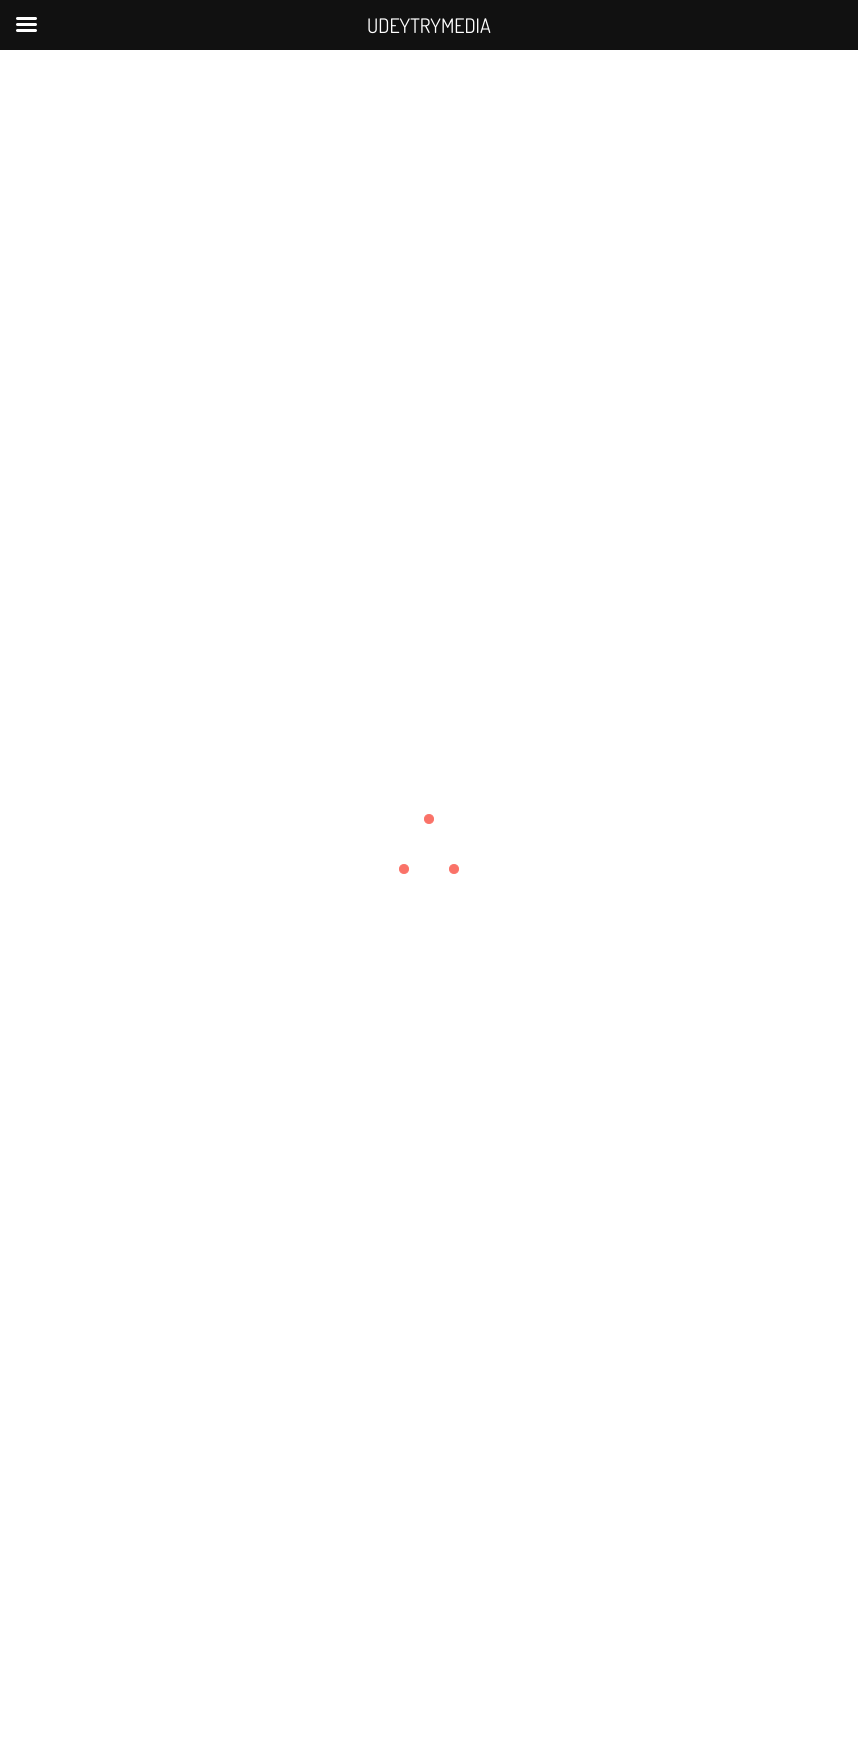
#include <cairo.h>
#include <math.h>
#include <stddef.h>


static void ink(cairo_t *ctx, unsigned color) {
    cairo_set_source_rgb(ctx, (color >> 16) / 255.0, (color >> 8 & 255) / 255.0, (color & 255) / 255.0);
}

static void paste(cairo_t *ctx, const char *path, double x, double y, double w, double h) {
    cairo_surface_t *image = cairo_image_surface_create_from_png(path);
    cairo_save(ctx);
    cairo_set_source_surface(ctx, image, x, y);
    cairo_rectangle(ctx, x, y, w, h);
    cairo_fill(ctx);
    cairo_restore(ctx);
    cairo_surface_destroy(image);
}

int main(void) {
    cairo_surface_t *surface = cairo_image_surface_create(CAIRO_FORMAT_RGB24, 858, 1744);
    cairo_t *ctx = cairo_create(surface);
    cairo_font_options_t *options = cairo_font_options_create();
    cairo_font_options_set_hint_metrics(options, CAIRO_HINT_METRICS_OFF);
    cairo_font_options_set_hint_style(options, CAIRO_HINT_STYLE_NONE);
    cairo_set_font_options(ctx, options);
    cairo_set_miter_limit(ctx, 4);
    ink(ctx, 0xFFFFFF);
    cairo_paint(ctx);
    ink(ctx, 0x111111);
    cairo_rectangle(ctx, 0, 0, 858, 50);
    cairo_fill(ctx);
    paste(ctx, "media/1.png", 16, 17, 21, 15);
    cairo_select_font_face(ctx, "Dosis", CAIRO_FONT_SLANT_NORMAL, CAIRO_FONT_WEIGHT_NORMAL);
    cairo_set_font_size(ctx, 20);
    ink(ctx, 0xFFFFFF);
    cairo_move_to(ctx, 367, 33);
    cairo_show_text(ctx, "UDEYTRYMEDIA");
    ink(ctx, 0xFA7268);
    cairo_new_path(ctx);
    cairo_arc(ctx, 429, 819, 4.5, 0, 2 * M_PI);
    cairo_fill_preserve(ctx);
    cairo_set_line_width(ctx, 1);
    cairo_stroke(ctx);
    cairo_arc(ctx, 404, 869, 4.5, 0, 2 * M_PI);
    cairo_fill_preserve(ctx);
    cairo_stroke(ctx);
    cairo_arc(ctx, 454, 869, 4.5, 0, 2 * M_PI);
    cairo_fill_preserve(ctx);
    cairo_stroke(ctx);
    cairo_surface_write_to_png(surface, "image.png");
    cairo_font_options_destroy(options);
    cairo_destroy(ctx);
    cairo_surface_destroy(surface);
    return 0;
}
